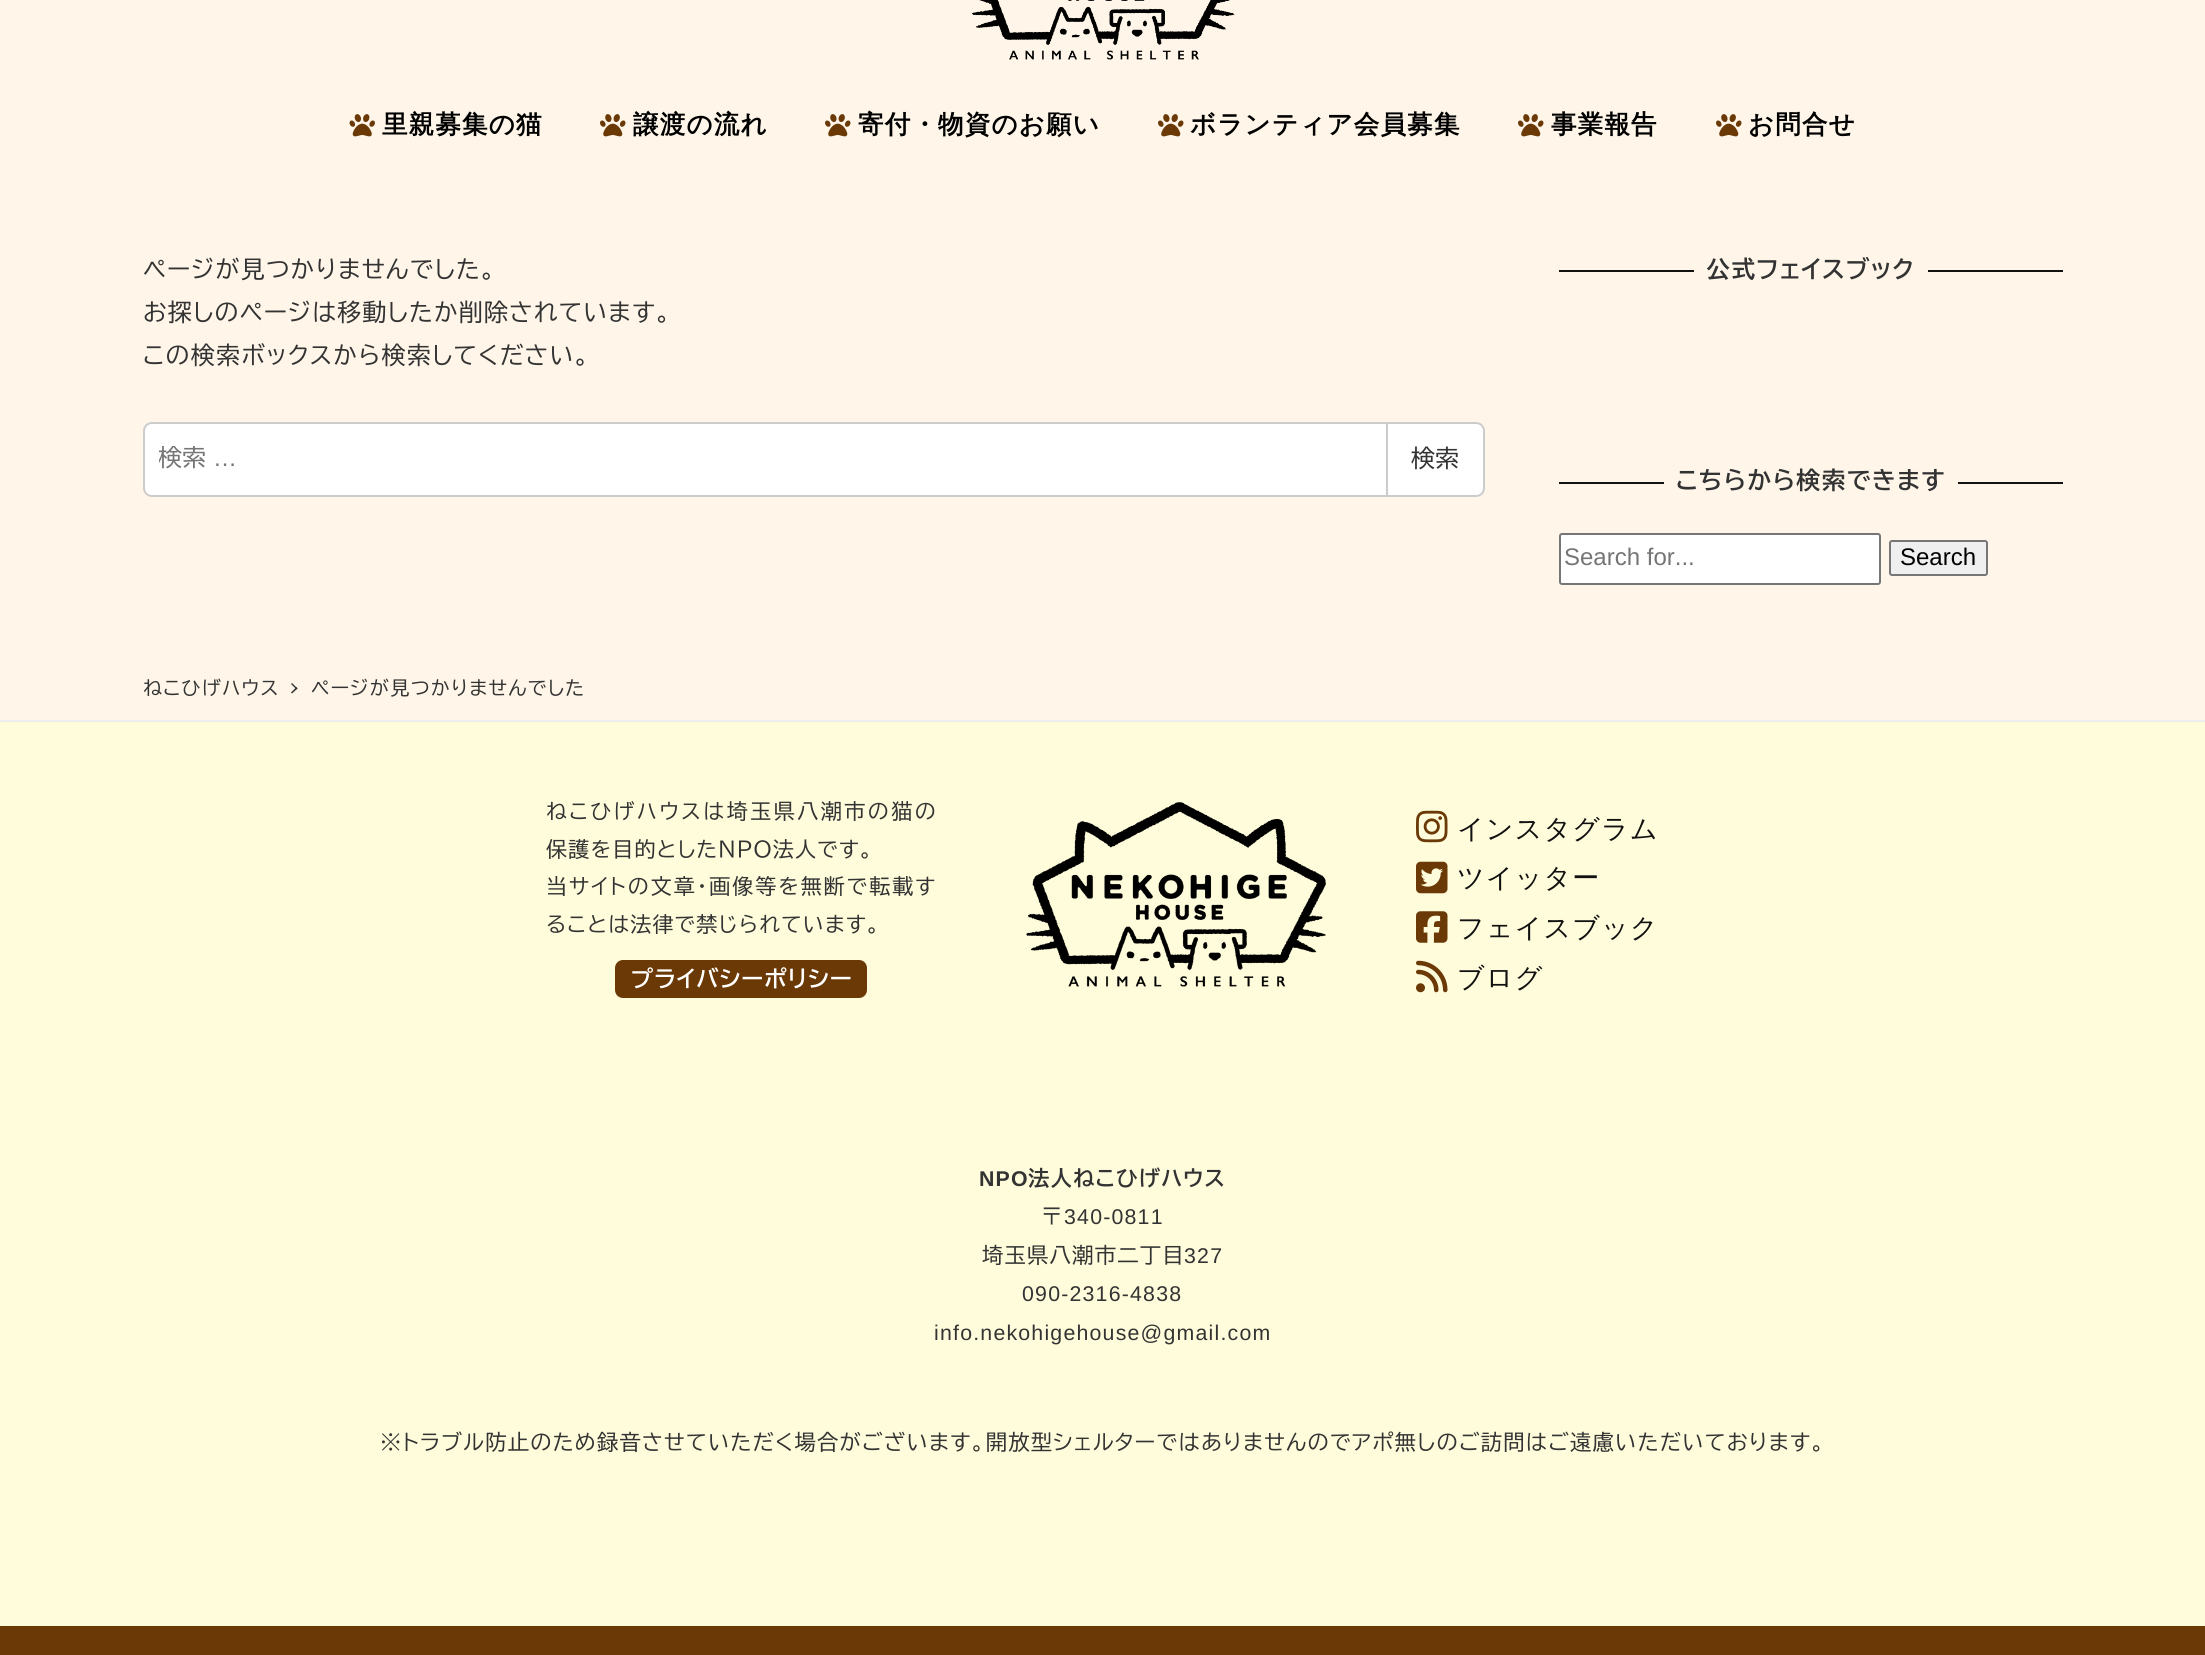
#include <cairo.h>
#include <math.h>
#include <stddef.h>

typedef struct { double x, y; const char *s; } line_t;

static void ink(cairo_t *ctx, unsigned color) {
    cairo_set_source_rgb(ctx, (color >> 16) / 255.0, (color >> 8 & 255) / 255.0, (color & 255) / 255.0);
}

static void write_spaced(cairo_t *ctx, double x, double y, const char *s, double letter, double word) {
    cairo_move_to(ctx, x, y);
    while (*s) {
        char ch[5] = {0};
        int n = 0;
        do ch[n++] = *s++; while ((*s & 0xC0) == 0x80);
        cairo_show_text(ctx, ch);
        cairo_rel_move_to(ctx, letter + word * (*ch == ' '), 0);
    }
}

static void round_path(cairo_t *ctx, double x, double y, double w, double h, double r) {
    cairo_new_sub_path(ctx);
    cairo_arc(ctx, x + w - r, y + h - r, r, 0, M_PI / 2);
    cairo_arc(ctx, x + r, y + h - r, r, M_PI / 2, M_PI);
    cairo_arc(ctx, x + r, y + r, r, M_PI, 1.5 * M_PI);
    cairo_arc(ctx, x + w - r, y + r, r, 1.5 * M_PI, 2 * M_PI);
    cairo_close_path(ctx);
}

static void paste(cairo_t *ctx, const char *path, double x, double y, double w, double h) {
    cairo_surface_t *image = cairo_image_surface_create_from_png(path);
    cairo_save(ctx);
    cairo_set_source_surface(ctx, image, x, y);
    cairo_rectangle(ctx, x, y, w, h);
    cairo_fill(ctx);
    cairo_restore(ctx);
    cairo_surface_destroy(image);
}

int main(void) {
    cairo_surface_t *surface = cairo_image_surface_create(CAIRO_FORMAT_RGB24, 2205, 1655);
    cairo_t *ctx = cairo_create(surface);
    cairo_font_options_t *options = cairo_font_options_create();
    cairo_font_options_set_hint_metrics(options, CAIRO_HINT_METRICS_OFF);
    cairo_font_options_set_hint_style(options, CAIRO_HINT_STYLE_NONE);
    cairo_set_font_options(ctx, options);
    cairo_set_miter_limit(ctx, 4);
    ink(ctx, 0xFFF6E9);
    cairo_paint(ctx);
    paste(ctx, "media/1.png", 972, 0, 263, 60);
    paste(ctx, "media/2.png", 349, 114, 26, 23);
    cairo_select_font_face(ctx, "WenQuanYi Zen Hei", CAIRO_FONT_SLANT_NORMAL, CAIRO_FONT_WEIGHT_BOLD);
    cairo_set_font_size(ctx, 25.5);
    ink(ctx, 0x000000);
    write_spaced(ctx, 382, 133, "里親募集の猫", 1.2, 0);
    paste(ctx, "media/3.png", 600, 114, 26, 23);
    write_spaced(ctx, 633, 133, "譲渡の流れ", 1.2, 0);
    paste(ctx, "media/3.png", 825, 114, 26, 23);
    write_spaced(ctx, 858, 133, "寄付・物資のお願い", 1.2, 0);
    paste(ctx, "media/3.png", 1158, 114, 26, 23);
    write_spaced(ctx, 1190, 133, "ボランティア会員募集", 1.2, 0);
    paste(ctx, "media/3.png", 1518, 114, 26, 23);
    write_spaced(ctx, 1551, 133, "事業報告", 1.2, 0);
    paste(ctx, "media/3.png", 1716, 114, 26, 23);
    write_spaced(ctx, 1748, 133, "お問合せ", 1.2, 0);
    cairo_select_font_face(ctx, "BIZ UDPGothic", CAIRO_FONT_SLANT_NORMAL, CAIRO_FONT_WEIGHT_NORMAL);
    cairo_set_font_size(ctx, 24);
    ink(ctx, 0x333333);
    {
        static const line_t items[] = {
            {143, 278, "ページが見つかりませんでした。"},
            {143, 321, "お探しのページは移動したか削除されています。"},
            {143, 364, "この検索ボックスから検索してください。"},
        };
        for (size_t i = 0; i < sizeof items / sizeof *items; i++) {
            write_spaced(ctx, items[i].x, items[i].y, items[i].s, 1.2, 0);
        }
    }
    ink(ctx, 0xFFFFFF);
    cairo_new_path(ctx);
    cairo_move_to(ctx, 1387, 423);
    cairo_line_to(ctx, 1476, 423);
    cairo_curve_to(ctx, 1480.5, 423, 1484, 426.5, 1484, 431);
    cairo_line_to(ctx, 1484, 488);
    cairo_curve_to(ctx, 1484, 492.5, 1480.5, 496, 1476, 496);
    cairo_line_to(ctx, 1387, 496);
    cairo_close_path(ctx);
    cairo_fill_preserve(ctx);
    ink(ctx, 0xCCCCCC);
    cairo_stroke(ctx);
    ink(ctx, 0xFFFFFF);
    cairo_new_path(ctx);
    cairo_move_to(ctx, 152, 423);
    cairo_line_to(ctx, 1387, 423);
    cairo_line_to(ctx, 1387, 496);
    cairo_line_to(ctx, 152, 496);
    cairo_curve_to(ctx, 147.5, 496, 144, 492.5, 144, 488);
    cairo_line_to(ctx, 144, 431);
    cairo_curve_to(ctx, 144, 426.5, 147.5, 423, 152, 423);
    cairo_close_path(ctx);
    cairo_fill_preserve(ctx);
    ink(ctx, 0xCCCCCC);
    cairo_stroke(ctx);
    cairo_save(ctx);
    cairo_rectangle(ctx, 159, 446, 1190, 27);
    cairo_clip(ctx);
    ink(ctx, 0x757575);
    cairo_move_to(ctx, 158, 466);
    cairo_show_text(ctx, "検索");
    cairo_restore(ctx);
    cairo_select_font_face(ctx, "Liberation Sans", CAIRO_FONT_SLANT_NORMAL, CAIRO_FONT_WEIGHT_NORMAL);
    ink(ctx, 0x757575);
    cairo_move_to(ctx, 213, 466);
    cairo_show_text(ctx, "…");
    cairo_select_font_face(ctx, "BIZ UDPGothic", CAIRO_FONT_SLANT_NORMAL, CAIRO_FONT_WEIGHT_NORMAL);
    ink(ctx, 0x333333);
    cairo_move_to(ctx, 1411, 467);
    cairo_show_text(ctx, "検索");
    ink(ctx, 0x111111);
    cairo_rectangle(ctx, 1559, 270, 135, 2);
    cairo_fill(ctx);
    cairo_select_font_face(ctx, "BIZ UDPGothic", CAIRO_FONT_SLANT_NORMAL, CAIRO_FONT_WEIGHT_BOLD);
    ink(ctx, 0x333333);
    write_spaced(ctx, 1706, 278, "公式フェイスブック", 1.2, 0);
    ink(ctx, 0x111111);
    cairo_rectangle(ctx, 1928, 270, 135, 2);
    cairo_fill(ctx);
    cairo_rectangle(ctx, 1559, 482, 105, 2);
    cairo_fill(ctx);
    ink(ctx, 0x333333);
    write_spaced(ctx, 1676, 489, "こちらから検索できます", 1.2, 0);
    ink(ctx, 0x111111);
    cairo_rectangle(ctx, 1958, 482, 105, 2);
    cairo_fill(ctx);
    ink(ctx, 0xFFFFFF);
    round_path(ctx, 1560, 534, 320, 50, 2);
    cairo_fill_preserve(ctx);
    ink(ctx, 0x767676);
    cairo_stroke(ctx);
    cairo_select_font_face(ctx, "Liberation Sans", CAIRO_FONT_SLANT_NORMAL, CAIRO_FONT_WEIGHT_NORMAL);
    ink(ctx, 0x757575);
    cairo_move_to(ctx, 1564, 565);
    cairo_show_text(ctx, "Search for...");
    ink(ctx, 0xEFEFEF);
    round_path(ctx, 1890, 541, 97, 34, 2);
    cairo_fill_preserve(ctx);
    ink(ctx, 0x767676);
    cairo_stroke(ctx);
    ink(ctx, 0x000000);
    cairo_move_to(ctx, 1900, 565);
    cairo_show_text(ctx, "Search");
    cairo_select_font_face(ctx, "BIZ UDPGothic", CAIRO_FONT_SLANT_NORMAL, CAIRO_FONT_WEIGHT_NORMAL);
    cairo_set_font_size(ctx, 19.25);
    ink(ctx, 0x333333);
    write_spaced(ctx, 143, 695, "ねこひげハウス", 1.2, 0);
    cairo_new_path(ctx);
    cairo_move_to(ctx, 292, 683);
    cairo_line_to(ctx, 297.5, 688.5);
    cairo_line_to(ctx, 296.5, 689.5);
    cairo_line_to(ctx, 291, 684);
    cairo_close_path(ctx);
    cairo_fill(ctx);
    cairo_new_path(ctx);
    cairo_move_to(ctx, 296.5, 687);
    cairo_line_to(ctx, 297.5, 688.5);
    cairo_line_to(ctx, 292, 693.5);
    cairo_line_to(ctx, 291, 692.5);
    cairo_close_path(ctx);
    cairo_fill(ctx);
    write_spaced(ctx, 311, 695, "ページが見つかりませんでした", 1.2, 0);
    ink(ctx, 0xEEEEEE);
    cairo_rectangle(ctx, 0, 720, 2205, 2);
    cairo_fill(ctx);
    ink(ctx, 0xFFFCDB);
    cairo_rectangle(ctx, 0, 722, 2205, 904);
    cairo_fill(ctx);
    cairo_set_font_size(ctx, 21);
    ink(ctx, 0x333333);
    write_spaced(ctx, 546, 819, "ねこひげハウスは埼玉県八潮市の猫の", 2.5, 0);
    write_spaced(ctx, 546, 857, "保護を目的としたNPO法人です。", 1.2, 0);
    write_spaced(ctx, 546, 894, "当サイトの文章・画像等を無断で転載す", 2, 0);
    write_spaced(ctx, 546, 932, "ることは法律で禁じられています。", 1.2, 0);
    ink(ctx, 0x6A3906);
    round_path(ctx, 615, 960, 252, 38, 8);
    cairo_fill(ctx);
    cairo_select_font_face(ctx, "BIZ UDPGothic", CAIRO_FONT_SLANT_NORMAL, CAIRO_FONT_WEIGHT_BOLD);
    cairo_set_font_size(ctx, 22.5);
    ink(ctx, 0xFFFFFF);
    write_spaced(ctx, 631, 987, "プライバシーポリシー", 1.2, 0);
    paste(ctx, "media/4.png", 1026, 802, 300, 185);
    paste(ctx, "media/5.png", 1416, 810, 32, 33);
    cairo_select_font_face(ctx, "WenQuanYi Zen Hei Medium", CAIRO_FONT_SLANT_NORMAL, CAIRO_FONT_WEIGHT_NORMAL);
    cairo_set_font_size(ctx, 27);
    ink(ctx, 0x111111);
    write_spaced(ctx, 1457, 838, "インスタグラム", 1.2, 0);
    paste(ctx, "media/6.png", 1416, 861, 32, 33);
    write_spaced(ctx, 1457, 887, "ツイッター", 1.2, 0);
    paste(ctx, "media/7.png", 1416, 911, 32, 32);
    write_spaced(ctx, 1457, 937, "フェイスブック", 1.2, 0);
    paste(ctx, "media/8.png", 1416, 960, 32, 33);
    write_spaced(ctx, 1457, 987, "ブログ", 1.2, 0);
    cairo_select_font_face(ctx, "Liberation Sans", CAIRO_FONT_SLANT_NORMAL, CAIRO_FONT_WEIGHT_BOLD);
    cairo_set_font_size(ctx, 21.33);
    ink(ctx, 0x333333);
    write_spaced(ctx, 979, 1186, "NPO", 1.2, 0);
    cairo_select_font_face(ctx, "BIZ UDPGothic", CAIRO_FONT_SLANT_NORMAL, CAIRO_FONT_WEIGHT_BOLD);
    write_spaced(ctx, 1028, 1186, "法人ねこひげハウス", 1.2, 0);
    cairo_select_font_face(ctx, "BIZ UDPGothic", CAIRO_FONT_SLANT_NORMAL, CAIRO_FONT_WEIGHT_NORMAL);
    write_spaced(ctx, 1041, 1224, "〒", 1.2, 0);
    cairo_select_font_face(ctx, "Liberation Sans", CAIRO_FONT_SLANT_NORMAL, CAIRO_FONT_WEIGHT_NORMAL);
    write_spaced(ctx, 1064, 1224, "340-0811", 1.2, 0);
    cairo_select_font_face(ctx, "BIZ UDPGothic", CAIRO_FONT_SLANT_NORMAL, CAIRO_FONT_WEIGHT_NORMAL);
    write_spaced(ctx, 982, 1263, "埼玉県八潮市二丁目", 1.2, 0);
    cairo_select_font_face(ctx, "Liberation Sans", CAIRO_FONT_SLANT_NORMAL, CAIRO_FONT_WEIGHT_NORMAL);
    {
        static const line_t items[] = {
            {1184, 1263, "327"},
            {1022, 1301, "090-2316-4838"},
            {934, 1340, "info.nekohigehouse@gmail.com"},
        };
        for (size_t i = 0; i < sizeof items / sizeof *items; i++) {
            write_spaced(ctx, items[i].x, items[i].y, items[i].s, 1.2, 0);
        }
    }
    cairo_select_font_face(ctx, "BIZ UDPGothic", CAIRO_FONT_SLANT_NORMAL, CAIRO_FONT_WEIGHT_NORMAL);
    write_spaced(ctx, 380, 1450, "※トラブル防止のため録音させていただく場合がございます。開放型シェルターではありませんのでアポ無しのご訪問はご遠慮いただいております。", 1.2, 0);
    ink(ctx, 0x6A3906);
    cairo_rectangle(ctx, 0, 1626, 2205, 29);
    cairo_fill(ctx);
    cairo_surface_write_to_png(surface, "image.png");
    cairo_font_options_destroy(options);
    cairo_destroy(ctx);
    cairo_surface_destroy(surface);
    return 0;
}
